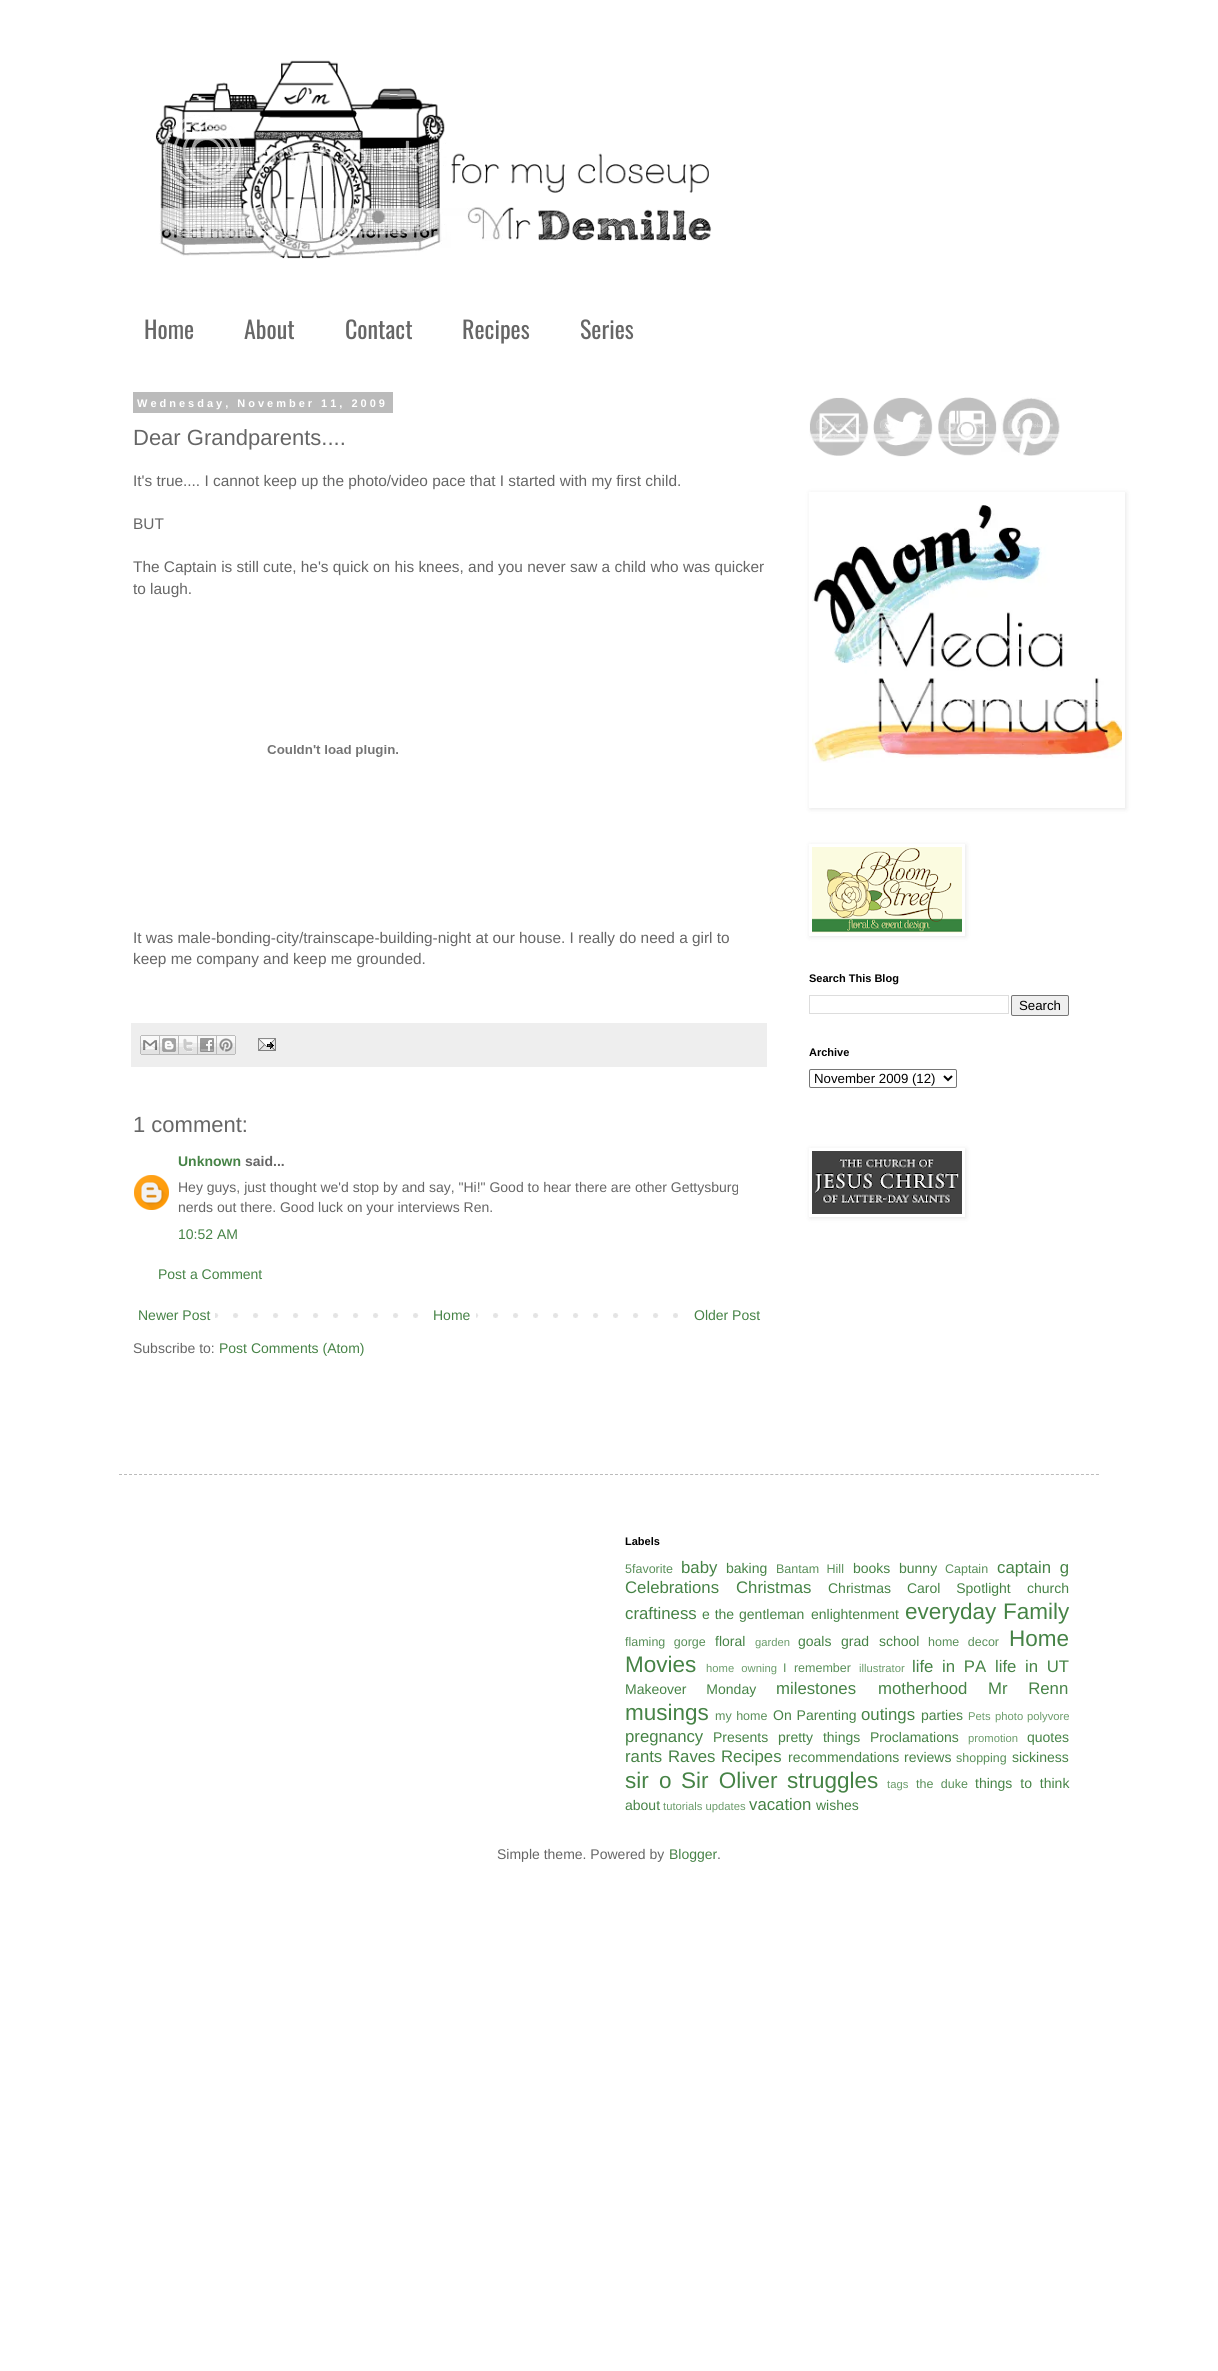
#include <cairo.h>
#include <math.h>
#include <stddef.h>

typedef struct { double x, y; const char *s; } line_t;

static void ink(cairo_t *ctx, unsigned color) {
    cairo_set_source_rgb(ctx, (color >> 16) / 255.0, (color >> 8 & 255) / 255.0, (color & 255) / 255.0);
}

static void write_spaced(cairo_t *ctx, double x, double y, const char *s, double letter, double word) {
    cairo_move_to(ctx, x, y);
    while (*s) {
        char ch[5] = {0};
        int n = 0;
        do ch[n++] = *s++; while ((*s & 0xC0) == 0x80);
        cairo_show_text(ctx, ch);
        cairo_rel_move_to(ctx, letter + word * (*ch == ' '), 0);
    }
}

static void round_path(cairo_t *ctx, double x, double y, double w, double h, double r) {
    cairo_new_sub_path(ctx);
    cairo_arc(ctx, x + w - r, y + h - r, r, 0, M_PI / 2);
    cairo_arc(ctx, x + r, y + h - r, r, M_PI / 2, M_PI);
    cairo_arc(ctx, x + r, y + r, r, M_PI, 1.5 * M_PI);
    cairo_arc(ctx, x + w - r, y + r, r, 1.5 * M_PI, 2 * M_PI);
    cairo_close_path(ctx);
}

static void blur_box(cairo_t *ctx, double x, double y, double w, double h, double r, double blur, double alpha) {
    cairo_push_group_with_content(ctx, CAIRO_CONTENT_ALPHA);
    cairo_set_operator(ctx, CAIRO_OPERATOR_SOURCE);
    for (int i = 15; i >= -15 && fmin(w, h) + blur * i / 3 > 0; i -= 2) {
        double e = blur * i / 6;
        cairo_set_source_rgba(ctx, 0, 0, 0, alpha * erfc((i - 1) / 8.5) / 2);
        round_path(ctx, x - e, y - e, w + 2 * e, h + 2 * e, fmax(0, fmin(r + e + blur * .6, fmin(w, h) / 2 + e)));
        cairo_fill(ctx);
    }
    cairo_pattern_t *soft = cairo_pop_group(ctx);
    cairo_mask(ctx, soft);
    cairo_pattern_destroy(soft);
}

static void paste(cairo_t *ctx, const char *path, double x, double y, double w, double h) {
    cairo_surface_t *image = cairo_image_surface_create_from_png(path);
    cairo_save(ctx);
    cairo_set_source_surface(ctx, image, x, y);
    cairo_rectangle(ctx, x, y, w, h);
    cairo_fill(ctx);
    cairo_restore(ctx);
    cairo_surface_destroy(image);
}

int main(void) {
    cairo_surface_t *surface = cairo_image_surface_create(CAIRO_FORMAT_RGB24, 1218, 2371);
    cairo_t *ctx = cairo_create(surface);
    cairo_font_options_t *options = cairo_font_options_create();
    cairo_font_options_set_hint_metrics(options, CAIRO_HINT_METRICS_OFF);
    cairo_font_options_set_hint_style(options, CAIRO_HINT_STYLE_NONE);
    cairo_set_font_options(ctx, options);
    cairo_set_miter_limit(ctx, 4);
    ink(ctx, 0xFFFFFF);
    cairo_paint(ctx);
    paste(ctx, "media/1.png", 155, 60, 557, 199);
    cairo_select_font_face(ctx, "Oswald", CAIRO_FONT_SLANT_NORMAL, CAIRO_FONT_WEIGHT_NORMAL);
    cairo_set_font_size(ctx, 24);
    ink(ctx, 0x666666);
    {
        static const line_t items[] = {
            {144, 339, "Home"},
            {244, 339, "About"},
            {345, 339, "Contact"},
            {462, 339, "Recipes"},
            {580, 339, "Series"},
        };
        for (size_t i = 0; i < sizeof items / sizeof *items; i++) {
            cairo_move_to(ctx, items[i].x, items[i].y);
            cairo_show_text(ctx, items[i].s);
        }
    }
    ink(ctx, 0xBBBBBB);
    cairo_rectangle(ctx, 133, 392, 260, 21);
    cairo_fill(ctx);
    cairo_select_font_face(ctx, "Liberation Sans", CAIRO_FONT_SLANT_NORMAL, CAIRO_FONT_WEIGHT_BOLD);
    cairo_set_font_size(ctx, 11);
    ink(ctx, 0xFFFFFF);
    write_spaced(ctx, 137, 407, "Wednesday, November 11, 2009", 3, 0);
    cairo_select_font_face(ctx, "Liberation Sans", CAIRO_FONT_SLANT_NORMAL, CAIRO_FONT_WEIGHT_NORMAL);
    cairo_set_font_size(ctx, 22);
    ink(ctx, 0x666666);
    cairo_move_to(ctx, 133, 445);
    cairo_show_text(ctx, "Dear Grandparents....");
    cairo_set_font_size(ctx, 15.4);
    {
        static const line_t items[] = {
            {133, 486, "It's true.... I cannot keep up the photo/video pace that I started with my first child."},
            {133, 529, "BUT"},
            {133, 572, "The Captain is still cute, he's quick on his knees, and you never saw a child who was quicker"},
            {133, 594, "to laugh."},
        };
        for (size_t i = 0; i < sizeof items / sizeof *items; i++) {
            cairo_move_to(ctx, items[i].x, items[i].y);
            cairo_show_text(ctx, items[i].s);
        }
    }
    paste(ctx, "media/2.png", 267, 745, 131, 12);
    cairo_move_to(ctx, 133, 943);
    cairo_show_text(ctx, "It was male-bonding-city/trainscape-building-night at our house. I really do need a girl to");
    cairo_move_to(ctx, 133, 964);
    cairo_show_text(ctx, "keep me company and keep me grounded.");
    ink(ctx, 0xEEEEEE);
    cairo_rectangle(ctx, 131, 1023, 636, 44);
    cairo_fill(ctx);
    paste(ctx, "media/3.png", 140, 1035, 20, 20);
    paste(ctx, "media/4.png", 160, 1035, 19, 20);
    paste(ctx, "media/5.png", 179, 1035, 19, 20);
    paste(ctx, "media/6.png", 198, 1035, 19, 20);
    paste(ctx, "media/7.png", 217, 1035, 19, 20);
    paste(ctx, "media/8.png", 258, 1038, 18, 13);
    cairo_set_font_size(ctx, 22);
    ink(ctx, 0x666666);
    cairo_move_to(ctx, 133, 1132);
    cairo_show_text(ctx, "1 comment:");
    cairo_select_font_face(ctx, "Liberation Sans", CAIRO_FONT_SLANT_NORMAL, CAIRO_FONT_WEIGHT_BOLD);
    cairo_set_font_size(ctx, 14);
    ink(ctx, 0x468346);
    cairo_move_to(ctx, 178, 1166);
    cairo_show_text(ctx, "Unknown");
    ink(ctx, 0x666666);
    cairo_move_to(ctx, 245, 1166);
    cairo_show_text(ctx, "said...");
    paste(ctx, "media/9.png", 134, 1175, 35, 35);
    cairo_select_font_face(ctx, "Liberation Sans", CAIRO_FONT_SLANT_NORMAL, CAIRO_FONT_WEIGHT_NORMAL);
    cairo_move_to(ctx, 178, 1192);
    cairo_show_text(ctx, "Hey guys, just thought we'd stop by and say, \"Hi!\" Good to hear there are other Gettysburg");
    cairo_move_to(ctx, 178, 1212);
    cairo_show_text(ctx, "nerds out there. Good luck on your interviews Ren.");
    ink(ctx, 0x468346);
    cairo_move_to(ctx, 178, 1239);
    cairo_show_text(ctx, "10:52 AM");
    cairo_move_to(ctx, 158, 1279);
    cairo_show_text(ctx, "Post a Comment");
    paste(ctx, "media/10.png", 215, 1313, 463, 5);
    cairo_move_to(ctx, 138, 1320);
    cairo_show_text(ctx, "Newer Post");
    ink(ctx, 0xFFFFFF);
    cairo_rectangle(ctx, 433, 1313, 43, 5);
    cairo_fill(ctx);
    ink(ctx, 0x468346);
    cairo_move_to(ctx, 433, 1320);
    cairo_show_text(ctx, "Home");
    cairo_move_to(ctx, 694, 1320);
    cairo_show_text(ctx, "Older Post");
    ink(ctx, 0x666666);
    cairo_move_to(ctx, 133, 1353);
    cairo_show_text(ctx, "Subscribe to:");
    ink(ctx, 0x468346);
    cairo_move_to(ctx, 219, 1353);
    cairo_show_text(ctx, "Post Comments (Atom)");
    paste(ctx, "media/11.png", 809, 397, 60, 59);
    paste(ctx, "media/12.png", 873, 397, 60, 60);
    paste(ctx, "media/13.png", 938, 397, 59, 59);
    paste(ctx, "media/14.png", 1001, 397, 59, 59);
    cairo_save(ctx);
    cairo_set_fill_rule(ctx, CAIRO_FILL_RULE_EVEN_ODD);
    cairo_new_path(ctx);
    cairo_move_to(ctx, 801, 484);
    cairo_line_to(ctx, 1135, 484);
    cairo_line_to(ctx, 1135, 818);
    cairo_line_to(ctx, 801, 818);
    cairo_close_path(ctx);
    cairo_move_to(ctx, 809, 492);
    cairo_line_to(ctx, 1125, 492);
    cairo_line_to(ctx, 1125, 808);
    cairo_line_to(ctx, 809, 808);
    cairo_close_path(ctx);
    cairo_clip(ctx);
    ink(ctx, 0x000000);
    blur_box(ctx, 810, 493, 316, 316, 0, 2.5, 0.1);
    cairo_restore(ctx);
    paste(ctx, "media/15.png", 812, 505, 310, 258);
    cairo_save(ctx);
    cairo_set_fill_rule(ctx, CAIRO_FILL_RULE_EVEN_ODD);
    cairo_new_path(ctx);
    cairo_move_to(ctx, 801, 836);
    cairo_line_to(ctx, 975, 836);
    cairo_line_to(ctx, 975, 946);
    cairo_line_to(ctx, 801, 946);
    cairo_close_path(ctx);
    cairo_move_to(ctx, 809, 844);
    cairo_line_to(ctx, 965, 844);
    cairo_line_to(ctx, 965, 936);
    cairo_line_to(ctx, 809, 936);
    cairo_close_path(ctx);
    cairo_clip(ctx);
    ink(ctx, 0x000000);
    blur_box(ctx, 810, 845, 156, 92, 0, 2.5, 0.1);
    cairo_restore(ctx);
    paste(ctx, "media/16.png", 812, 847, 150, 86);
    cairo_select_font_face(ctx, "Liberation Sans", CAIRO_FONT_SLANT_NORMAL, CAIRO_FONT_WEIGHT_BOLD);
    cairo_set_font_size(ctx, 11);
    ink(ctx, 0x000000);
    cairo_move_to(ctx, 809, 982);
    cairo_show_text(ctx, "Search This Blog");
    cairo_rectangle(ctx, 809.5, 995.5, 199, 18);
    ink(ctx, 0xDDDDDD);
    cairo_set_line_width(ctx, 1);
    cairo_stroke(ctx);
    ink(ctx, 0xEFEFEF);
    round_path(ctx, 1011.5, 995.5, 57, 20, 1.5);
    cairo_fill_preserve(ctx);
    ink(ctx, 0x767676);
    cairo_stroke(ctx);
    cairo_select_font_face(ctx, "Liberation Sans", CAIRO_FONT_SLANT_NORMAL, CAIRO_FONT_WEIGHT_NORMAL);
    cairo_set_font_size(ctx, 13.25);
    ink(ctx, 0x000000);
    cairo_move_to(ctx, 1019, 1010);
    cairo_show_text(ctx, "Search");
    cairo_select_font_face(ctx, "Liberation Sans", CAIRO_FONT_SLANT_NORMAL, CAIRO_FONT_WEIGHT_BOLD);
    cairo_set_font_size(ctx, 11);
    cairo_move_to(ctx, 809, 1056);
    cairo_show_text(ctx, "Archive");
    round_path(ctx, 809.5, 1069.5, 147, 18, 1.5);
    ink(ctx, 0x767676);
    cairo_stroke(ctx);
    cairo_new_path(ctx);
    cairo_move_to(ctx, 944, 1076);
    cairo_line_to(ctx, 948, 1080);
    cairo_line_to(ctx, 952, 1076);
    ink(ctx, 0x000000);
    cairo_set_line_width(ctx, 2);
    cairo_stroke(ctx);
    cairo_select_font_face(ctx, "Liberation Sans", CAIRO_FONT_SLANT_NORMAL, CAIRO_FONT_WEIGHT_NORMAL);
    cairo_set_font_size(ctx, 13.25);
    cairo_move_to(ctx, 814, 1083);
    cairo_show_text(ctx, "November 2009 (12)");
    cairo_save(ctx);
    cairo_set_fill_rule(ctx, CAIRO_FILL_RULE_EVEN_ODD);
    cairo_new_path(ctx);
    cairo_move_to(ctx, 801, 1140);
    cairo_line_to(ctx, 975, 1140);
    cairo_line_to(ctx, 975, 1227);
    cairo_line_to(ctx, 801, 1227);
    cairo_close_path(ctx);
    cairo_move_to(ctx, 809, 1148);
    cairo_line_to(ctx, 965, 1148);
    cairo_line_to(ctx, 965, 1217);
    cairo_line_to(ctx, 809, 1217);
    cairo_close_path(ctx);
    cairo_clip(ctx);
    ink(ctx, 0x000000);
    blur_box(ctx, 810, 1149, 156, 69, 0, 2.5, 0.1);
    cairo_restore(ctx);
    paste(ctx, "media/17.png", 812, 1151, 150, 63);
    cairo_new_path(ctx);
    cairo_move_to(ctx, 119, 1474.5);
    cairo_line_to(ctx, 1099, 1474.5);
    ink(ctx, 0xBBBBBB);
    cairo_set_line_width(ctx, 1);
    cairo_set_dash(ctx, (double[]){3, 2.01}, 2, 0);
    cairo_stroke(ctx);
    cairo_select_font_face(ctx, "Liberation Sans", CAIRO_FONT_SLANT_NORMAL, CAIRO_FONT_WEIGHT_BOLD);
    cairo_set_font_size(ctx, 11);
    ink(ctx, 0x000000);
    cairo_move_to(ctx, 625, 1545);
    cairo_show_text(ctx, "Labels");
    cairo_select_font_face(ctx, "Liberation Sans", CAIRO_FONT_SLANT_NORMAL, CAIRO_FONT_WEIGHT_NORMAL);
    cairo_set_font_size(ctx, 12.5);
    ink(ctx, 0x598F59);
    cairo_move_to(ctx, 625, 1573);
    cairo_show_text(ctx, "5favorite");
    cairo_set_font_size(ctx, 16.75);
    ink(ctx, 0x468346);
    cairo_move_to(ctx, 681, 1573);
    cairo_show_text(ctx, "baby");
    cairo_set_font_size(ctx, 14);
    cairo_move_to(ctx, 726, 1573);
    cairo_show_text(ctx, "baking");
    cairo_set_font_size(ctx, 12.5);
    ink(ctx, 0x598F59);
    write_spaced(ctx, 776, 1573, "Bantam Hill", 0, 4);
    cairo_set_font_size(ctx, 14);
    ink(ctx, 0x468346);
    cairo_move_to(ctx, 853, 1573);
    cairo_show_text(ctx, "books");
    cairo_move_to(ctx, 899, 1573);
    cairo_show_text(ctx, "bunny");
    cairo_set_font_size(ctx, 12.5);
    ink(ctx, 0x598F59);
    cairo_move_to(ctx, 945, 1573);
    cairo_show_text(ctx, "Captain");
    cairo_set_font_size(ctx, 16.75);
    ink(ctx, 0x468346);
    write_spaced(ctx, 997, 1573, "captain g", 0, 4);
    cairo_move_to(ctx, 625, 1593);
    cairo_show_text(ctx, "Celebrations");
    cairo_move_to(ctx, 736, 1593);
    cairo_show_text(ctx, "Christmas");
    cairo_set_font_size(ctx, 14);
    write_spaced(ctx, 828, 1593, "Christmas Carol Spotlight", 0, 12);
    cairo_move_to(ctx, 1027, 1593);
    cairo_show_text(ctx, "church");
    cairo_set_font_size(ctx, 16.75);
    cairo_move_to(ctx, 625, 1619);
    cairo_show_text(ctx, "craftiness");
    cairo_set_font_size(ctx, 14);
    write_spaced(ctx, 702, 1619, "e the gentleman", 0, 1);
    cairo_move_to(ctx, 811, 1619);
    cairo_show_text(ctx, "enlightenment");
    cairo_set_font_size(ctx, 22.5);
    cairo_move_to(ctx, 905, 1619);
    cairo_show_text(ctx, "everyday");
    cairo_move_to(ctx, 1003, 1619);
    cairo_show_text(ctx, "Family");
    cairo_set_font_size(ctx, 12.5);
    ink(ctx, 0x598F59);
    write_spaced(ctx, 625, 1646, "flaming gorge", 0, 5);
    cairo_set_font_size(ctx, 14);
    ink(ctx, 0x468346);
    cairo_move_to(ctx, 715, 1646);
    cairo_show_text(ctx, "floral");
    cairo_set_font_size(ctx, 11.25);
    ink(ctx, 0x6B9C6B);
    cairo_move_to(ctx, 755, 1646);
    cairo_show_text(ctx, "garden");
    cairo_set_font_size(ctx, 14);
    ink(ctx, 0x468346);
    cairo_move_to(ctx, 798, 1646);
    cairo_show_text(ctx, "goals");
    write_spaced(ctx, 841, 1646, "grad school", 0, 6);
    cairo_set_font_size(ctx, 12.5);
    ink(ctx, 0x598F59);
    write_spaced(ctx, 928, 1646, "home decor", 0, 5);
    cairo_set_font_size(ctx, 22.5);
    ink(ctx, 0x468346);
    cairo_move_to(ctx, 1009, 1646);
    cairo_show_text(ctx, "Home");
    cairo_move_to(ctx, 625, 1672);
    cairo_show_text(ctx, "Movies");
    cairo_set_font_size(ctx, 11.25);
    ink(ctx, 0x6B9C6B);
    write_spaced(ctx, 706, 1672, "home owning", 0, 4);
    cairo_set_font_size(ctx, 12.5);
    ink(ctx, 0x598F59);
    write_spaced(ctx, 783, 1672, "I remember", 0, 4);
    cairo_set_font_size(ctx, 11.25);
    ink(ctx, 0x6B9C6B);
    cairo_move_to(ctx, 859, 1672);
    cairo_show_text(ctx, "illustrator");
    cairo_set_font_size(ctx, 16.75);
    ink(ctx, 0x468346);
    write_spaced(ctx, 912, 1672, "life in PA", 0, 4);
    write_spaced(ctx, 995, 1672, "life in UT", 0, 4);
    cairo_set_font_size(ctx, 14);
    write_spaced(ctx, 625, 1694, "Makeover Monday", 0, 16);
    cairo_set_font_size(ctx, 16.75);
    cairo_move_to(ctx, 776, 1694);
    cairo_show_text(ctx, "milestones");
    cairo_move_to(ctx, 878, 1694);
    cairo_show_text(ctx, "motherhood");
    write_spaced(ctx, 988, 1694, "Mr Renn", 0, 16);
    cairo_set_font_size(ctx, 22.5);
    cairo_move_to(ctx, 625, 1720);
    cairo_show_text(ctx, "musings");
    cairo_set_font_size(ctx, 12.5);
    ink(ctx, 0x598F59);
    write_spaced(ctx, 715, 1720, "my home", 0, 1);
    cairo_set_font_size(ctx, 14);
    ink(ctx, 0x468346);
    write_spaced(ctx, 773, 1720, "On Parenting", 0, 1);
    cairo_set_font_size(ctx, 16.75);
    cairo_move_to(ctx, 861, 1720);
    cairo_show_text(ctx, "outings");
    cairo_set_font_size(ctx, 14);
    cairo_move_to(ctx, 921, 1720);
    cairo_show_text(ctx, "parties");
    cairo_set_font_size(ctx, 11.25);
    ink(ctx, 0x6B9C6B);
    {
        static const line_t items[] = {
            {968, 1720, "Pets"},
            {995, 1720, "photo"},
            {1027, 1720, "polyvore"},
        };
        for (size_t i = 0; i < sizeof items / sizeof *items; i++) {
            cairo_move_to(ctx, items[i].x, items[i].y);
            cairo_show_text(ctx, items[i].s);
        }
    }
    cairo_set_font_size(ctx, 16.75);
    ink(ctx, 0x468346);
    cairo_move_to(ctx, 625, 1742);
    cairo_show_text(ctx, "pregnancy");
    cairo_set_font_size(ctx, 14);
    cairo_move_to(ctx, 713, 1742);
    cairo_show_text(ctx, "Presents");
    write_spaced(ctx, 778, 1742, "pretty things", 0, 6);
    cairo_move_to(ctx, 870, 1742);
    cairo_show_text(ctx, "Proclamations");
    cairo_set_font_size(ctx, 11.25);
    ink(ctx, 0x6B9C6B);
    cairo_move_to(ctx, 968, 1742);
    cairo_show_text(ctx, "promotion");
    cairo_set_font_size(ctx, 14);
    ink(ctx, 0x468346);
    cairo_move_to(ctx, 1027, 1742);
    cairo_show_text(ctx, "quotes");
    cairo_set_font_size(ctx, 16.75);
    {
        static const line_t items[] = {
            {625, 1762, "rants"},
            {668, 1762, "Raves"},
            {721, 1762, "Recipes"},
        };
        for (size_t i = 0; i < sizeof items / sizeof *items; i++) {
            cairo_move_to(ctx, items[i].x, items[i].y);
            cairo_show_text(ctx, items[i].s);
        }
    }
    cairo_set_font_size(ctx, 14);
    cairo_move_to(ctx, 788, 1762);
    cairo_show_text(ctx, "recommendations");
    cairo_move_to(ctx, 904, 1762);
    cairo_show_text(ctx, "reviews");
    cairo_set_font_size(ctx, 12.5);
    ink(ctx, 0x598F59);
    cairo_move_to(ctx, 956, 1762);
    cairo_show_text(ctx, "shopping");
    cairo_set_font_size(ctx, 14);
    ink(ctx, 0x468346);
    cairo_move_to(ctx, 1012, 1762);
    cairo_show_text(ctx, "sickiness");
    cairo_set_font_size(ctx, 22.5);
    write_spaced(ctx, 625, 1788, "sir o", 0, 4);
    write_spaced(ctx, 681, 1788, "Sir Oliver", 0, 4);
    cairo_move_to(ctx, 787, 1788);
    cairo_show_text(ctx, "struggles");
    cairo_set_font_size(ctx, 11.25);
    ink(ctx, 0x6B9C6B);
    cairo_move_to(ctx, 887, 1788);
    cairo_show_text(ctx, "tags");
    cairo_set_font_size(ctx, 12.5);
    ink(ctx, 0x598F59);
    write_spaced(ctx, 916, 1788, "the duke", 0, 4);
    cairo_set_font_size(ctx, 14);
    ink(ctx, 0x468346);
    write_spaced(ctx, 975, 1788, "things to think", 0, 4);
    cairo_move_to(ctx, 625, 1810);
    cairo_show_text(ctx, "about");
    cairo_set_font_size(ctx, 11.25);
    ink(ctx, 0x6B9C6B);
    cairo_move_to(ctx, 663, 1810);
    cairo_show_text(ctx, "tutorials updates");
    cairo_set_font_size(ctx, 16.75);
    ink(ctx, 0x468346);
    cairo_move_to(ctx, 749, 1810);
    cairo_show_text(ctx, "vacation");
    cairo_set_font_size(ctx, 14);
    cairo_move_to(ctx, 816, 1810);
    cairo_show_text(ctx, "wishes");
    ink(ctx, 0x666666);
    cairo_move_to(ctx, 497, 1859);
    cairo_show_text(ctx, "Simple theme. Powered by");
    ink(ctx, 0x468346);
    cairo_move_to(ctx, 669, 1859);
    cairo_show_text(ctx, "Blogger");
    ink(ctx, 0x666666);
    cairo_move_to(ctx, 717, 1859);
    cairo_show_text(ctx, ".");
    cairo_surface_write_to_png(surface, "image.png");
    cairo_font_options_destroy(options);
    cairo_destroy(ctx);
    cairo_surface_destroy(surface);
    return 0;
}
